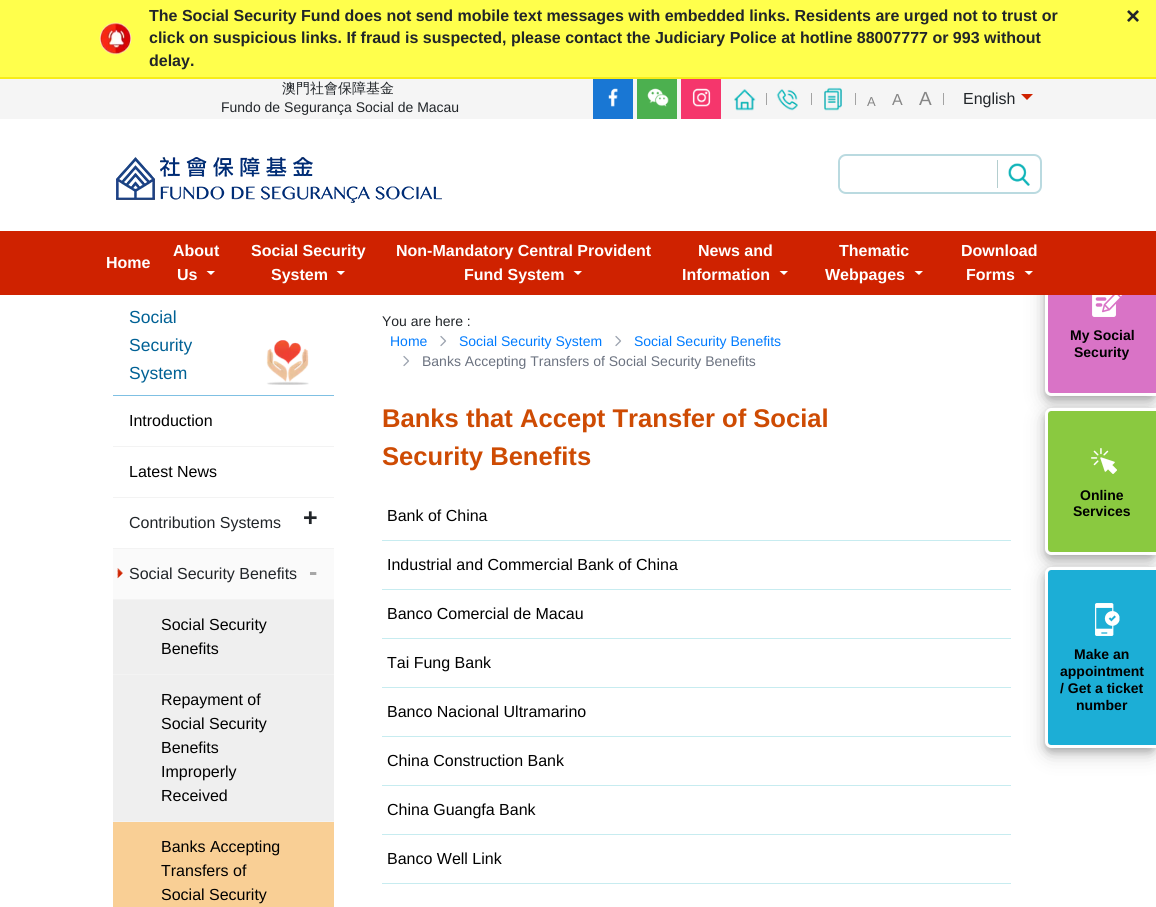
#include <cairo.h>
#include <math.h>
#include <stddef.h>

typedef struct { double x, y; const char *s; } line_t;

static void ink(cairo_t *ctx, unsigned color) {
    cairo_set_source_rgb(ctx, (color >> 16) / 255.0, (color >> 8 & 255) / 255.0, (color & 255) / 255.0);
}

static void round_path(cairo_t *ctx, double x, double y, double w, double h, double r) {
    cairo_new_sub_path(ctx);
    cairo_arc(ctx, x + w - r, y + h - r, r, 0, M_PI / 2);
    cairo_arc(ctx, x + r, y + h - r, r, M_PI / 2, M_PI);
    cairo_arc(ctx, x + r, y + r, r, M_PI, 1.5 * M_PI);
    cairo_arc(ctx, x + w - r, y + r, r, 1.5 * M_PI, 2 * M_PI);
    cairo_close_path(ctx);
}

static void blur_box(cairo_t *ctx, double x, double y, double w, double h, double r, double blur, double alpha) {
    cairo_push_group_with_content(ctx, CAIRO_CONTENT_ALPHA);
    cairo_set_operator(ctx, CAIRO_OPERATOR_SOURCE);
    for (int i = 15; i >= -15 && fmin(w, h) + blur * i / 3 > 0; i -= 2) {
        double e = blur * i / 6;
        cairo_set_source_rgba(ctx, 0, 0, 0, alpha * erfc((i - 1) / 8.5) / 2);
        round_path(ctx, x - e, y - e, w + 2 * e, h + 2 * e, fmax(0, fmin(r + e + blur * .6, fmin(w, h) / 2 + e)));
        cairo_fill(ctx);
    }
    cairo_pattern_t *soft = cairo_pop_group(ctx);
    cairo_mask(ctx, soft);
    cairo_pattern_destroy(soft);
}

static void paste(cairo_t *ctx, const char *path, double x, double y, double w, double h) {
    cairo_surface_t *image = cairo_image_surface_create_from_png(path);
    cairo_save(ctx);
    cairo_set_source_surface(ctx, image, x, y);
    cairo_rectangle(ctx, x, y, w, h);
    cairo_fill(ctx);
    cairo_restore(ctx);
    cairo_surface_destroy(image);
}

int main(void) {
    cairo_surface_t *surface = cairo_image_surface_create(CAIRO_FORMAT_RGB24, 1156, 907);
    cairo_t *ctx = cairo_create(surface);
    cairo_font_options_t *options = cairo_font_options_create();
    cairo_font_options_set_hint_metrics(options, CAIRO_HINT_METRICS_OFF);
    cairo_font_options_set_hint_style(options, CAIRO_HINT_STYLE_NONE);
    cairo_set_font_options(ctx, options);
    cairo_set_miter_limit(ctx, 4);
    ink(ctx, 0xFFFFFF);
    cairo_paint(ctx);
    ink(ctx, 0xFFFF4C);
    cairo_rectangle(ctx, 0, 0, 1156, 77);
    cairo_fill(ctx);
    ink(ctx, 0xF7EC18);
    cairo_rectangle(ctx, 0, 77, 1156, 2);
    cairo_fill(ctx);
    paste(ctx, "media/1.png", 99, 22, 33, 33);
    cairo_select_font_face(ctx, "Liberation Sans", CAIRO_FONT_SLANT_NORMAL, CAIRO_FONT_WEIGHT_BOLD);
    cairo_set_font_size(ctx, 16);
    ink(ctx, 0x212529);
    {
        static const line_t items[] = {
            {149, 21, "The Social Security Fund does not send mobile text messages with embedded links. Residents are urged not to trust or"},
            {149, 43, "click on suspicious links. If fraud is suspected, please contact the Judiciary Police at hotline 88007777 or 993 without"},
            {149, 66, "delay."},
        };
        for (size_t i = 0; i < sizeof items / sizeof *items; i++) {
            cairo_move_to(ctx, items[i].x, items[i].y);
            cairo_show_text(ctx, items[i].s);
        }
    }
    cairo_set_font_size(ctx, 24);
    cairo_move_to(ctx, 1126, 24);
    cairo_show_text(ctx, "×");
    ink(ctx, 0xF5F5F5);
    cairo_rectangle(ctx, 0, 79, 1156, 40);
    cairo_fill(ctx);
    cairo_select_font_face(ctx, "WenQuanYi Zen Hei Medium", CAIRO_FONT_SLANT_NORMAL, CAIRO_FONT_WEIGHT_NORMAL);
    cairo_set_font_size(ctx, 14);
    ink(ctx, 0x212529);
    cairo_move_to(ctx, 282, 93);
    cairo_show_text(ctx, "澳門社會保障基金");
    cairo_select_font_face(ctx, "Liberation Sans", CAIRO_FONT_SLANT_NORMAL, CAIRO_FONT_WEIGHT_NORMAL);
    cairo_move_to(ctx, 221, 112);
    cairo_show_text(ctx, "Fundo de Segurança Social de Macau");
    ink(ctx, 0x1977D4);
    cairo_rectangle(ctx, 593, 79, 40, 40);
    cairo_fill(ctx);
    paste(ctx, "media/2.png", 608, 88, 10, 19);
    ink(ctx, 0x4CB04F);
    cairo_rectangle(ctx, 637, 79, 40, 40);
    cairo_fill(ctx);
    paste(ctx, "media/3.png", 647, 88, 22, 19);
    ink(ctx, 0xF5366C);
    cairo_rectangle(ctx, 681, 79, 40, 40);
    cairo_fill(ctx);
    paste(ctx, "media/4.png", 692, 88, 19, 19);
    paste(ctx, "media/5.png", 734, 89, 22, 22);
    ink(ctx, 0xA3A3A3);
    cairo_rectangle(ctx, 766, 93, 1, 12);
    cairo_fill(ctx);
    paste(ctx, "media/6.png", 776, 89, 22, 22);
    cairo_rectangle(ctx, 811, 93, 1, 12);
    cairo_fill(ctx);
    paste(ctx, "media/7.png", 824, 87, 18, 24);
    cairo_rectangle(ctx, 855, 93, 1, 12);
    cairo_fill(ctx);
    cairo_set_font_size(ctx, 13);
    ink(ctx, 0x858585);
    cairo_move_to(ctx, 867, 106);
    cairo_show_text(ctx, "A");
    cairo_set_font_size(ctx, 16);
    cairo_move_to(ctx, 892, 105);
    cairo_show_text(ctx, "A");
    cairo_set_font_size(ctx, 19);
    cairo_move_to(ctx, 919, 105);
    cairo_show_text(ctx, "A");
    ink(ctx, 0xA3A3A3);
    cairo_rectangle(ctx, 943, 93, 1, 12);
    cairo_fill(ctx);
    cairo_set_font_size(ctx, 16);
    ink(ctx, 0x212529);
    cairo_move_to(ctx, 963, 104);
    cairo_show_text(ctx, "English");
    ink(ctx, 0xCF2200);
    cairo_new_path(ctx);
    cairo_move_to(ctx, 1021, 94);
    cairo_line_to(ctx, 1033, 94);
    cairo_line_to(ctx, 1027, 100);
    cairo_close_path(ctx);
    cairo_fill(ctx);
    paste(ctx, "media/8.png", 116, 157, 326, 46);
    round_path(ctx, 839, 155, 202, 38, 7);
    ink(ctx, 0xBADAE0);
    cairo_stroke(ctx);
    ink(ctx, 0xFFFFFF);
    cairo_rectangle(ctx, 840, 160, 1, 28);
    cairo_fill(ctx);
    paste(ctx, "media/9.png", 1008, 163, 22, 23);
    ink(ctx, 0xB4CECF);
    cairo_rectangle(ctx, 997, 160, 1, 28);
    cairo_fill(ctx);
    ink(ctx, 0x000000);
    blur_box(ctx, 1045, 254, 111, 148, 6, 10, 0.19);
    blur_box(ctx, 1045, 252, 111, 148, 6, 4, 0.2);
    ink(ctx, 0xD973C6);
    cairo_new_path(ctx);
    cairo_move_to(ctx, 1051, 251);
    cairo_line_to(ctx, 1156, 251);
    cairo_line_to(ctx, 1156, 393);
    cairo_line_to(ctx, 1051, 393);
    cairo_curve_to(ctx, 1049.5, 393, 1048, 391.5, 1048, 390);
    cairo_line_to(ctx, 1048, 254);
    cairo_curve_to(ctx, 1048, 252.5, 1049.5, 251, 1051, 251);
    cairo_close_path(ctx);
    cairo_fill(ctx);
    ink(ctx, 0xFFFFFF);
    cairo_set_fill_rule(ctx, CAIRO_FILL_RULE_EVEN_ODD);
    cairo_new_path(ctx);
    cairo_move_to(ctx, 1051, 248);
    cairo_line_to(ctx, 1156, 248);
    cairo_line_to(ctx, 1156, 396);
    cairo_line_to(ctx, 1051, 396);
    cairo_curve_to(ctx, 1048, 396, 1045, 393, 1045, 390);
    cairo_line_to(ctx, 1045, 254);
    cairo_curve_to(ctx, 1045, 251, 1048, 248, 1051, 248);
    cairo_close_path(ctx);
    cairo_move_to(ctx, 1051, 251);
    cairo_line_to(ctx, 1156, 251);
    cairo_line_to(ctx, 1156, 393);
    cairo_line_to(ctx, 1051, 393);
    cairo_curve_to(ctx, 1049, 393, 1048, 392, 1048, 390);
    cairo_line_to(ctx, 1048, 254);
    cairo_curve_to(ctx, 1048, 252, 1049, 251, 1051, 251);
    cairo_close_path(ctx);
    cairo_fill(ctx);
    ink(ctx, 0xCF2200);
    cairo_rectangle(ctx, 0, 231, 1156, 64);
    cairo_fill(ctx);
    cairo_select_font_face(ctx, "Liberation Sans", CAIRO_FONT_SLANT_NORMAL, CAIRO_FONT_WEIGHT_BOLD);
    ink(ctx, 0xFFFFFF);
    {
        static const line_t items[] = {
            {106, 268, "Home"},
            {173, 256, "About"},
            {177, 280, "Us"},
        };
        for (size_t i = 0; i < sizeof items / sizeof *items; i++) {
            cairo_move_to(ctx, items[i].x, items[i].y);
            cairo_show_text(ctx, items[i].s);
        }
    }
    cairo_set_fill_rule(ctx, CAIRO_FILL_RULE_WINDING);
    cairo_new_path(ctx);
    cairo_move_to(ctx, 206.5, 271);
    cairo_line_to(ctx, 211, 275);
    cairo_line_to(ctx, 215, 271);
    cairo_close_path(ctx);
    cairo_fill(ctx);
    cairo_move_to(ctx, 251, 256);
    cairo_show_text(ctx, "Social Security");
    cairo_move_to(ctx, 271, 280);
    cairo_show_text(ctx, "System");
    cairo_new_path(ctx);
    cairo_move_to(ctx, 336.5, 271);
    cairo_line_to(ctx, 341, 275);
    cairo_line_to(ctx, 345, 271);
    cairo_close_path(ctx);
    cairo_fill(ctx);
    cairo_move_to(ctx, 396, 256);
    cairo_show_text(ctx, "Non-Mandatory Central Provident");
    cairo_move_to(ctx, 464, 280);
    cairo_show_text(ctx, "Fund System");
    cairo_new_path(ctx);
    cairo_move_to(ctx, 573.5, 271);
    cairo_line_to(ctx, 578, 275);
    cairo_line_to(ctx, 582, 271);
    cairo_close_path(ctx);
    cairo_fill(ctx);
    cairo_move_to(ctx, 698, 256);
    cairo_show_text(ctx, "News and");
    cairo_move_to(ctx, 682, 280);
    cairo_show_text(ctx, "Information");
    cairo_new_path(ctx);
    cairo_move_to(ctx, 779.5, 271);
    cairo_line_to(ctx, 784, 275);
    cairo_line_to(ctx, 788, 271);
    cairo_close_path(ctx);
    cairo_fill(ctx);
    cairo_move_to(ctx, 839, 256);
    cairo_show_text(ctx, "Thematic");
    cairo_move_to(ctx, 825, 280);
    cairo_show_text(ctx, "Webpages");
    cairo_new_path(ctx);
    cairo_move_to(ctx, 914.5, 271);
    cairo_line_to(ctx, 919, 275);
    cairo_line_to(ctx, 923, 271);
    cairo_close_path(ctx);
    cairo_fill(ctx);
    cairo_move_to(ctx, 961, 256);
    cairo_show_text(ctx, "Download");
    cairo_move_to(ctx, 966, 280);
    cairo_show_text(ctx, "Forms");
    cairo_new_path(ctx);
    cairo_move_to(ctx, 1024.5, 271);
    cairo_line_to(ctx, 1029, 275);
    cairo_line_to(ctx, 1033, 271);
    cairo_close_path(ctx);
    cairo_fill(ctx);
    ink(ctx, 0x7FC0E3);
    cairo_rectangle(ctx, 113, 395, 221, 1);
    cairo_fill(ctx);
    cairo_select_font_face(ctx, "Liberation Sans", CAIRO_FONT_SLANT_NORMAL, CAIRO_FONT_WEIGHT_NORMAL);
    cairo_set_font_size(ctx, 17.5);
    ink(ctx, 0x006195);
    {
        static const line_t items[] = {
            {129, 323, "Social"},
            {129, 351, "Security"},
            {129, 379, "System"},
        };
        for (size_t i = 0; i < sizeof items / sizeof *items; i++) {
            cairo_move_to(ctx, items[i].x, items[i].y);
            cairo_show_text(ctx, items[i].s);
        }
    }
    paste(ctx, "media/10.png", 266, 340, 43, 45);
    ink(ctx, 0xF3F3F3);
    cairo_rectangle(ctx, 113, 446, 221, 1);
    cairo_fill(ctx);
    cairo_set_font_size(ctx, 16);
    ink(ctx, 0x000000);
    cairo_move_to(ctx, 129, 426);
    cairo_show_text(ctx, "Introduction");
    ink(ctx, 0xF3F3F3);
    cairo_rectangle(ctx, 113, 497, 221, 1);
    cairo_fill(ctx);
    ink(ctx, 0x000000);
    cairo_move_to(ctx, 129, 477);
    cairo_show_text(ctx, "Latest News");
    ink(ctx, 0xF3F3F3);
    cairo_rectangle(ctx, 113, 548, 221, 1);
    cairo_fill(ctx);
    ink(ctx, 0x212529);
    cairo_move_to(ctx, 129, 528);
    cairo_show_text(ctx, "Contribution Systems");
    cairo_select_font_face(ctx, "Liberation Sans", CAIRO_FONT_SLANT_NORMAL, CAIRO_FONT_WEIGHT_BOLD);
    cairo_set_font_size(ctx, 25);
    cairo_move_to(ctx, 303, 526);
    cairo_show_text(ctx, "+");
    ink(ctx, 0xFAFAFA);
    cairo_rectangle(ctx, 113, 549, 221, 50);
    cairo_fill(ctx);
    ink(ctx, 0xF3F3F3);
    cairo_rectangle(ctx, 113, 599, 221, 1);
    cairo_fill(ctx);
    paste(ctx, "media/11.png", 117, 568, 6, 11);
    cairo_select_font_face(ctx, "Liberation Sans", CAIRO_FONT_SLANT_NORMAL, CAIRO_FONT_WEIGHT_NORMAL);
    cairo_set_font_size(ctx, 16);
    ink(ctx, 0x212529);
    cairo_move_to(ctx, 129, 579);
    cairo_show_text(ctx, "Social Security Benefits");
    cairo_select_font_face(ctx, "Liberation Sans", CAIRO_FONT_SLANT_NORMAL, CAIRO_FONT_WEIGHT_BOLD);
    cairo_set_font_size(ctx, 25);
    ink(ctx, 0xA6A6A6);
    cairo_move_to(ctx, 309, 580);
    cairo_show_text(ctx, "-");
    ink(ctx, 0xEFEFEF);
    cairo_rectangle(ctx, 113, 600, 221, 221);
    cairo_fill(ctx);
    ink(ctx, 0xF3F3F3);
    cairo_rectangle(ctx, 113, 674, 221, 1);
    cairo_fill(ctx);
    cairo_select_font_face(ctx, "Liberation Sans", CAIRO_FONT_SLANT_NORMAL, CAIRO_FONT_WEIGHT_NORMAL);
    cairo_set_font_size(ctx, 16);
    ink(ctx, 0x000000);
    cairo_move_to(ctx, 161, 630);
    cairo_show_text(ctx, "Social Security");
    cairo_move_to(ctx, 161, 654);
    cairo_show_text(ctx, "Benefits");
    ink(ctx, 0xF3F3F3);
    cairo_rectangle(ctx, 113, 821, 221, 1);
    cairo_fill(ctx);
    ink(ctx, 0x000000);
    {
        static const line_t items[] = {
            {161, 705, "Repayment of"},
            {161, 729, "Social Security"},
            {161, 753, "Benefits"},
            {161, 777, "Improperly"},
            {161, 801, "Received"},
        };
        for (size_t i = 0; i < sizeof items / sizeof *items; i++) {
            cairo_move_to(ctx, items[i].x, items[i].y);
            cairo_show_text(ctx, items[i].s);
        }
    }
    ink(ctx, 0xF9CF95);
    cairo_rectangle(ctx, 113, 822, 221, 85);
    cairo_fill(ctx);
    ink(ctx, 0x000000);
    {
        static const line_t items[] = {
            {161, 852, "Banks Accepting"},
            {161, 876, "Transfers of"},
            {161, 900, "Social Security"},
        };
        for (size_t i = 0; i < sizeof items / sizeof *items; i++) {
            cairo_move_to(ctx, items[i].x, items[i].y);
            cairo_show_text(ctx, items[i].s);
        }
    }
    cairo_set_font_size(ctx, 14);
    ink(ctx, 0x212529);
    cairo_move_to(ctx, 382, 326);
    cairo_show_text(ctx, "You are here :");
    ink(ctx, 0x007BFF);
    cairo_move_to(ctx, 390, 346);
    cairo_show_text(ctx, "Home");
    cairo_new_path(ctx);
    cairo_move_to(ctx, 441, 336.5);
    cairo_line_to(ctx, 445.5, 341);
    cairo_line_to(ctx, 441, 345.5);
    ink(ctx, 0x9CA3AF);
    cairo_set_line_width(ctx, 1.3);
    cairo_set_line_cap(ctx, CAIRO_LINE_CAP_ROUND);
    cairo_set_line_join(ctx, CAIRO_LINE_JOIN_ROUND);
    cairo_stroke(ctx);
    ink(ctx, 0x007BFF);
    cairo_move_to(ctx, 459, 346);
    cairo_show_text(ctx, "Social Security System");
    cairo_new_path(ctx);
    cairo_move_to(ctx, 616, 336.5);
    cairo_line_to(ctx, 620.5, 341);
    cairo_line_to(ctx, 616, 345.5);
    ink(ctx, 0x9CA3AF);
    cairo_stroke(ctx);
    ink(ctx, 0x007BFF);
    cairo_move_to(ctx, 634, 346);
    cairo_show_text(ctx, "Social Security Benefits");
    cairo_new_path(ctx);
    cairo_move_to(ctx, 404, 356.5);
    cairo_line_to(ctx, 408.5, 361);
    cairo_line_to(ctx, 404, 365.5);
    ink(ctx, 0x9CA3AF);
    cairo_stroke(ctx);
    ink(ctx, 0x6B7280);
    cairo_move_to(ctx, 422, 366);
    cairo_show_text(ctx, "Banks Accepting Transfers of Social Security Benefits");
    cairo_select_font_face(ctx, "Liberation Sans", CAIRO_FONT_SLANT_NORMAL, CAIRO_FONT_WEIGHT_BOLD);
    cairo_set_font_size(ctx, 25.6);
    ink(ctx, 0xCE4B03);
    cairo_move_to(ctx, 382, 427);
    cairo_show_text(ctx, "Banks that Accept Transfer of Social");
    cairo_move_to(ctx, 382, 465);
    cairo_show_text(ctx, "Security Benefits");
    ink(ctx, 0xC7ECF0);
    cairo_rectangle(ctx, 382, 540, 629, 1);
    cairo_fill(ctx);
    cairo_select_font_face(ctx, "Liberation Sans", CAIRO_FONT_SLANT_NORMAL, CAIRO_FONT_WEIGHT_NORMAL);
    cairo_set_font_size(ctx, 16);
    ink(ctx, 0x000000);
    cairo_move_to(ctx, 387, 521);
    cairo_show_text(ctx, "Bank of China");
    ink(ctx, 0xC7ECF0);
    cairo_rectangle(ctx, 382, 589, 629, 1);
    cairo_fill(ctx);
    ink(ctx, 0x000000);
    cairo_move_to(ctx, 387, 570);
    cairo_show_text(ctx, "Industrial and Commercial Bank of China");
    ink(ctx, 0xC7ECF0);
    cairo_rectangle(ctx, 382, 638, 629, 1);
    cairo_fill(ctx);
    ink(ctx, 0x000000);
    cairo_move_to(ctx, 387, 619);
    cairo_show_text(ctx, "Banco Comercial de Macau");
    ink(ctx, 0xC7ECF0);
    cairo_rectangle(ctx, 382, 687, 629, 1);
    cairo_fill(ctx);
    ink(ctx, 0x000000);
    cairo_move_to(ctx, 387, 668);
    cairo_show_text(ctx, "Tai Fung Bank");
    ink(ctx, 0xC7ECF0);
    cairo_rectangle(ctx, 382, 736, 629, 1);
    cairo_fill(ctx);
    ink(ctx, 0x000000);
    cairo_move_to(ctx, 387, 717);
    cairo_show_text(ctx, "Banco Nacional Ultramarino");
    ink(ctx, 0xC7ECF0);
    cairo_rectangle(ctx, 382, 785, 629, 1);
    cairo_fill(ctx);
    ink(ctx, 0x000000);
    cairo_move_to(ctx, 387, 766);
    cairo_show_text(ctx, "China Construction Bank");
    ink(ctx, 0xC7ECF0);
    cairo_rectangle(ctx, 382, 834, 629, 1);
    cairo_fill(ctx);
    ink(ctx, 0x000000);
    cairo_move_to(ctx, 387, 815);
    cairo_show_text(ctx, "China Guangfa Bank");
    ink(ctx, 0xC7ECF0);
    cairo_rectangle(ctx, 382, 883, 629, 1);
    cairo_fill(ctx);
    ink(ctx, 0x000000);
    cairo_move_to(ctx, 387, 864);
    cairo_show_text(ctx, "Banco Well Link");
    paste(ctx, "media/12.png", 1092, 295, 30, 22);
    cairo_select_font_face(ctx, "Liberation Sans", CAIRO_FONT_SLANT_NORMAL, CAIRO_FONT_WEIGHT_BOLD);
    cairo_set_font_size(ctx, 14);
    cairo_move_to(ctx, 1070, 340);
    cairo_show_text(ctx, "My Social");
    cairo_move_to(ctx, 1074, 357);
    cairo_show_text(ctx, "Security");
    ink(ctx, 0x000000);
    blur_box(ctx, 1045, 414, 111, 147, 6, 10, 0.19);
    blur_box(ctx, 1045, 412, 111, 147, 6, 4, 0.2);
    ink(ctx, 0x8AC940);
    cairo_new_path(ctx);
    cairo_move_to(ctx, 1051, 411);
    cairo_line_to(ctx, 1156, 411);
    cairo_line_to(ctx, 1156, 552);
    cairo_line_to(ctx, 1051, 552);
    cairo_curve_to(ctx, 1049.5, 552, 1048, 550.5, 1048, 549);
    cairo_line_to(ctx, 1048, 414);
    cairo_curve_to(ctx, 1048, 412.5, 1049.5, 411, 1051, 411);
    cairo_close_path(ctx);
    cairo_fill(ctx);
    ink(ctx, 0xFFFFFF);
    cairo_set_fill_rule(ctx, CAIRO_FILL_RULE_EVEN_ODD);
    cairo_new_path(ctx);
    cairo_move_to(ctx, 1051, 408);
    cairo_line_to(ctx, 1156, 408);
    cairo_line_to(ctx, 1156, 555);
    cairo_line_to(ctx, 1051, 555);
    cairo_curve_to(ctx, 1048, 555, 1045, 552, 1045, 549);
    cairo_line_to(ctx, 1045, 414);
    cairo_curve_to(ctx, 1045, 411, 1048, 408, 1051, 408);
    cairo_close_path(ctx);
    cairo_move_to(ctx, 1051, 411);
    cairo_line_to(ctx, 1156, 411);
    cairo_line_to(ctx, 1156, 552);
    cairo_line_to(ctx, 1051, 552);
    cairo_curve_to(ctx, 1049, 552, 1048, 551, 1048, 549);
    cairo_line_to(ctx, 1048, 414);
    cairo_curve_to(ctx, 1048, 412, 1049, 411, 1051, 411);
    cairo_close_path(ctx);
    cairo_fill(ctx);
    paste(ctx, "media/13.png", 1091, 448, 26, 26);
    ink(ctx, 0x000000);
    cairo_move_to(ctx, 1080, 500);
    cairo_show_text(ctx, "Online");
    cairo_move_to(ctx, 1073, 516);
    cairo_show_text(ctx, "Services");
    ink(ctx, 0x000000);
    blur_box(ctx, 1045, 573, 111, 181, 6, 10, 0.19);
    blur_box(ctx, 1045, 571, 111, 181, 6, 4, 0.2);
    ink(ctx, 0x1CAED6);
    cairo_new_path(ctx);
    cairo_move_to(ctx, 1051, 570);
    cairo_line_to(ctx, 1156, 570);
    cairo_line_to(ctx, 1156, 745);
    cairo_line_to(ctx, 1051, 745);
    cairo_curve_to(ctx, 1049.5, 745, 1048, 743.5, 1048, 742);
    cairo_line_to(ctx, 1048, 573);
    cairo_curve_to(ctx, 1048, 571.5, 1049.5, 570, 1051, 570);
    cairo_close_path(ctx);
    cairo_fill(ctx);
    ink(ctx, 0xFFFFFF);
    cairo_new_path(ctx);
    cairo_move_to(ctx, 1051, 567);
    cairo_line_to(ctx, 1156, 567);
    cairo_line_to(ctx, 1156, 748);
    cairo_line_to(ctx, 1051, 748);
    cairo_curve_to(ctx, 1048, 748, 1045, 745, 1045, 742);
    cairo_line_to(ctx, 1045, 573);
    cairo_curve_to(ctx, 1045, 570, 1048, 567, 1051, 567);
    cairo_close_path(ctx);
    cairo_move_to(ctx, 1051, 570);
    cairo_line_to(ctx, 1156, 570);
    cairo_line_to(ctx, 1156, 745);
    cairo_line_to(ctx, 1051, 745);
    cairo_curve_to(ctx, 1049, 745, 1048, 744, 1048, 742);
    cairo_line_to(ctx, 1048, 573);
    cairo_curve_to(ctx, 1048, 571, 1049, 570, 1051, 570);
    cairo_close_path(ctx);
    cairo_fill(ctx);
    paste(ctx, "media/14.png", 1095, 603, 25, 33);
    ink(ctx, 0x000000);
    {
        static const line_t items[] = {
            {1074, 659, "Make an"},
            {1060, 676, "appointment"},
            {1060, 693, "/ Get a ticket"},
            {1076, 710, "number"},
        };
        for (size_t i = 0; i < sizeof items / sizeof *items; i++) {
            cairo_move_to(ctx, items[i].x, items[i].y);
            cairo_show_text(ctx, items[i].s);
        }
    }
    cairo_surface_write_to_png(surface, "image.png");
    cairo_font_options_destroy(options);
    cairo_destroy(ctx);
    cairo_surface_destroy(surface);
    return 0;
}
